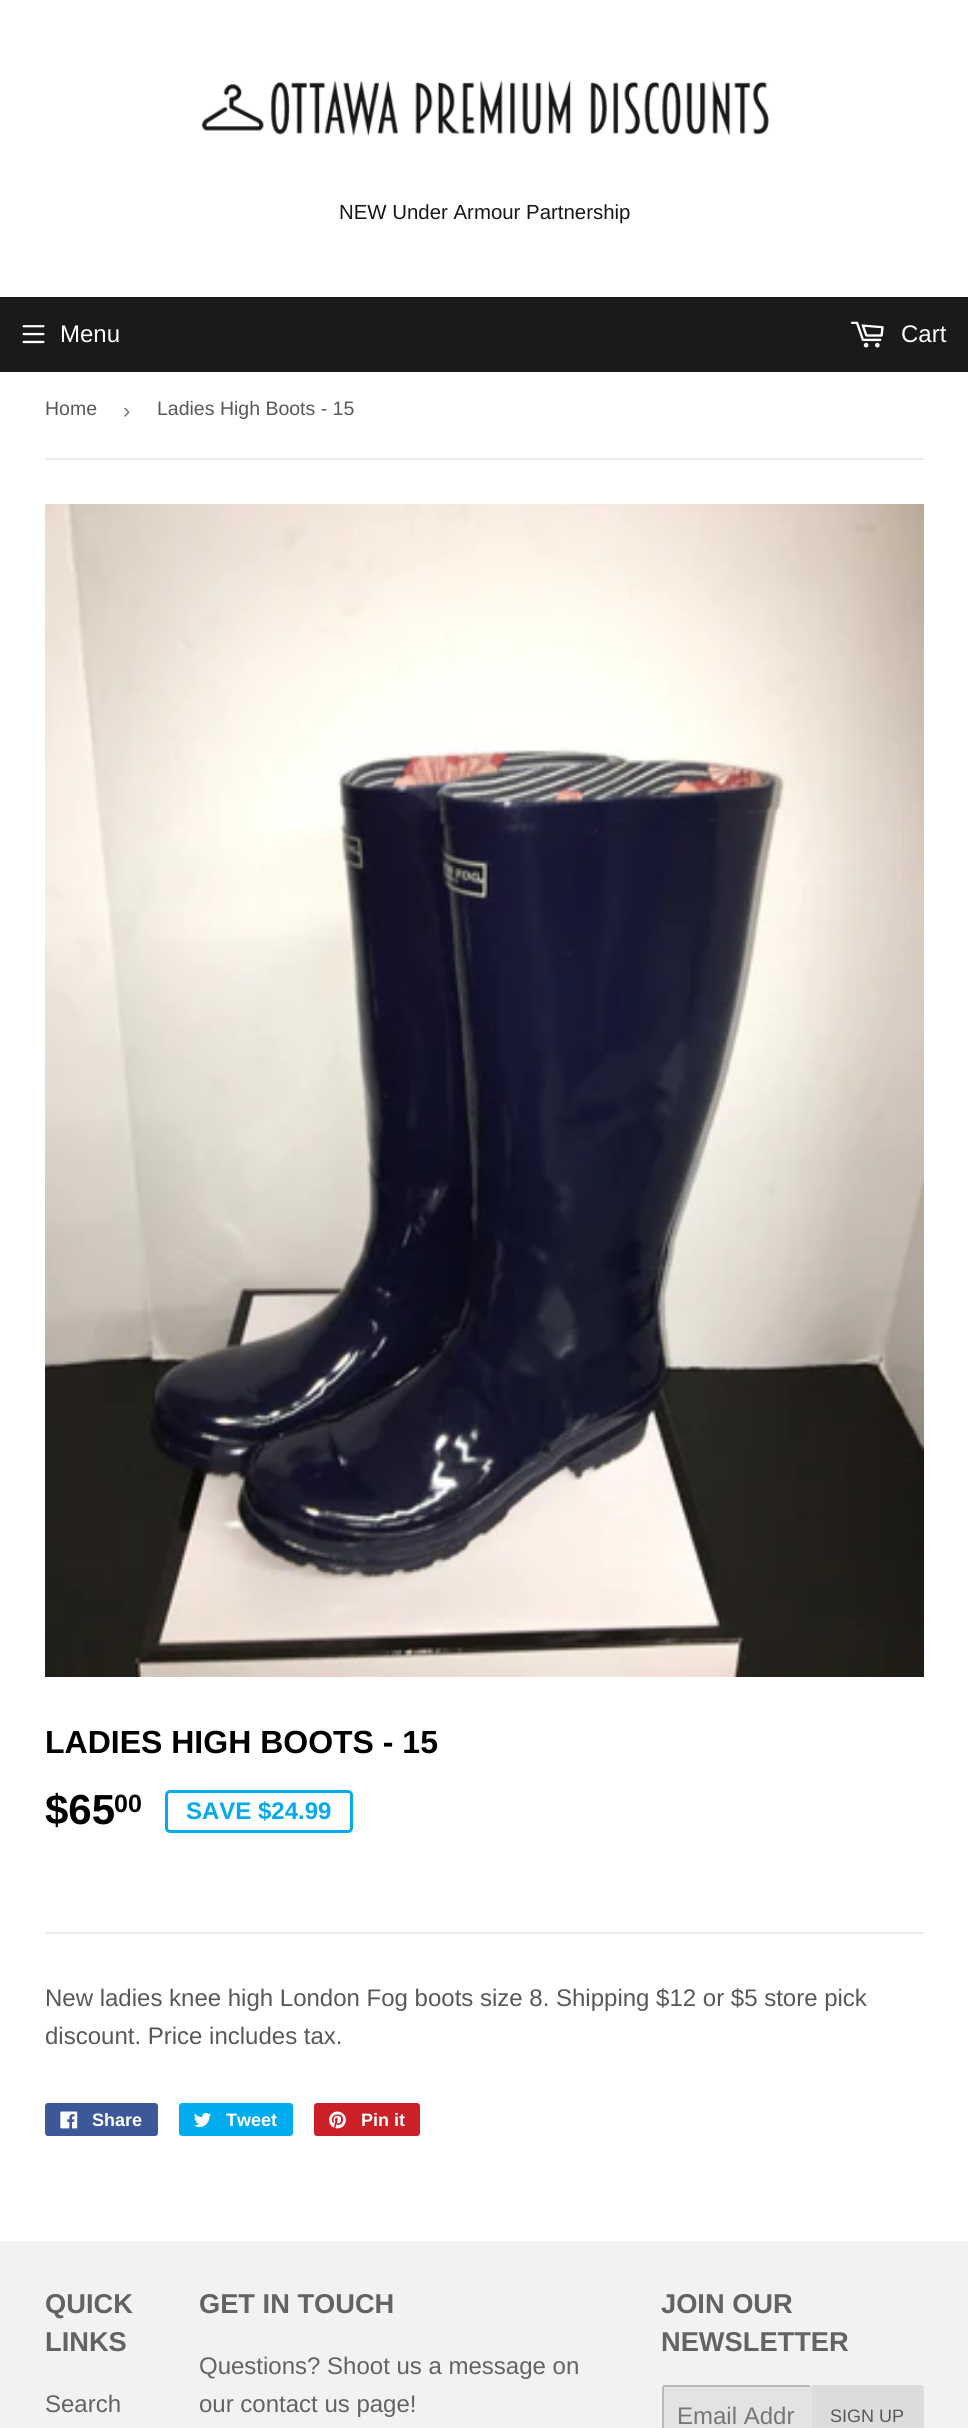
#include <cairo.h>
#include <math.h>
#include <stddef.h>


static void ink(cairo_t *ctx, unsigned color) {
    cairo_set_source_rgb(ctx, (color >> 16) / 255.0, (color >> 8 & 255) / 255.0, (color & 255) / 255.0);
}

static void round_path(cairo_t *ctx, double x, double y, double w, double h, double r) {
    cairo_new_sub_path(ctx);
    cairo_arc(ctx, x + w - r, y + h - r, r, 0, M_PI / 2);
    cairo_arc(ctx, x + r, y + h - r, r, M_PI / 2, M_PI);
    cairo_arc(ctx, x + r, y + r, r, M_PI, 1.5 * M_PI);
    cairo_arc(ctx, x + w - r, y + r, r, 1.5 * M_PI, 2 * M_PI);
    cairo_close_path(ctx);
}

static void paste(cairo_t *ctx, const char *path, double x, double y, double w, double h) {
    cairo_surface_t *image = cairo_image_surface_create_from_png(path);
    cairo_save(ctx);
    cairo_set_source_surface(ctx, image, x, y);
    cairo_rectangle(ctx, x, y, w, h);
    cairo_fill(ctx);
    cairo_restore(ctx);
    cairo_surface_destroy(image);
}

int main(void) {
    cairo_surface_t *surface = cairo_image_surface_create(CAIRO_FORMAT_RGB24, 968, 2428);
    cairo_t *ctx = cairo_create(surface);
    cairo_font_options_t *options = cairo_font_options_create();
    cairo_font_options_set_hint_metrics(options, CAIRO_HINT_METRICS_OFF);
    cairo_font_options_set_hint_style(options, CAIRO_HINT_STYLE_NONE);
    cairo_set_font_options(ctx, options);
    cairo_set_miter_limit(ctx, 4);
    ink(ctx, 0xFFFFFF);
    cairo_paint(ctx);
    paste(ctx, "media/1.png", 201, 80, 568, 56);
    cairo_select_font_face(ctx, "Liberation Sans", CAIRO_FONT_SLANT_NORMAL, CAIRO_FONT_WEIGHT_NORMAL);
    cairo_set_font_size(ctx, 20.4);
    ink(ctx, 0x171717);
    cairo_move_to(ctx, 339, 219);
    cairo_show_text(ctx, "NEW Under Armour Partnership");
    ink(ctx, 0x1A1A1A);
    cairo_rectangle(ctx, 0, 297, 968, 75);
    cairo_fill(ctx);
    paste(ctx, "media/2.png", 22, 325, 23, 19);
    cairo_set_font_size(ctx, 24);
    ink(ctx, 0xFFFFFF);
    cairo_move_to(ctx, 60, 342);
    cairo_show_text(ctx, "Menu");
    paste(ctx, "media/3.png", 850, 321, 34, 27);
    cairo_move_to(ctx, 901, 342);
    cairo_show_text(ctx, "Cart");
    ink(ctx, 0xECECEC);
    cairo_rectangle(ctx, 45, 458, 879, 2);
    cairo_fill(ctx);
    cairo_set_font_size(ctx, 19.5);
    ink(ctx, 0x585858);
    cairo_move_to(ctx, 45, 415);
    cairo_show_text(ctx, "Home");
    cairo_set_font_size(ctx, 22);
    ink(ctx, 0x767676);
    cairo_move_to(ctx, 123, 418);
    cairo_show_text(ctx, "›");
    cairo_set_font_size(ctx, 19.5);
    ink(ctx, 0x585858);
    cairo_move_to(ctx, 157, 415);
    cairo_show_text(ctx, "Ladies High Boots - 15");
    paste(ctx, "media/4.png", 45, 504, 879, 1173);
    cairo_select_font_face(ctx, "Liberation Sans", CAIRO_FONT_SLANT_NORMAL, CAIRO_FONT_WEIGHT_BOLD);
    cairo_set_font_size(ctx, 32);
    ink(ctx, 0x000000);
    cairo_move_to(ctx, 45, 1753);
    cairo_show_text(ctx, "LADIES HIGH BOOTS - 15");
    cairo_set_font_size(ctx, 42);
    cairo_move_to(ctx, 45, 1824);
    cairo_show_text(ctx, "$65");
    cairo_set_font_size(ctx, 25);
    cairo_move_to(ctx, 114, 1812);
    cairo_show_text(ctx, "00");
    round_path(ctx, 166.5, 1791.5, 185, 40, 3.5);
    ink(ctx, 0x05A9ED);
    cairo_set_line_width(ctx, 3);
    cairo_stroke(ctx);
    cairo_set_font_size(ctx, 24);
    cairo_move_to(ctx, 186, 1819);
    cairo_show_text(ctx, "SAVE $24.99");
    ink(ctx, 0xECECEC);
    cairo_rectangle(ctx, 45, 1932, 879, 2);
    cairo_fill(ctx);
    cairo_select_font_face(ctx, "Liberation Sans", CAIRO_FONT_SLANT_NORMAL, CAIRO_FONT_WEIGHT_NORMAL);
    ink(ctx, 0x585858);
    cairo_move_to(ctx, 45, 2006);
    cairo_show_text(ctx, "New ladies knee high London Fog boots size 8. Shipping $12 or $5 store pick");
    cairo_move_to(ctx, 45, 2044);
    cairo_show_text(ctx, "discount. Price includes tax.");
    ink(ctx, 0x3B5998);
    round_path(ctx, 45, 2103, 113, 33, 3);
    cairo_fill(ctx);
    paste(ctx, "media/5.png", 60, 2111, 18, 18);
    cairo_select_font_face(ctx, "Liberation Sans", CAIRO_FONT_SLANT_NORMAL, CAIRO_FONT_WEIGHT_BOLD);
    cairo_set_font_size(ctx, 18);
    ink(ctx, 0xFFFFFF);
    cairo_move_to(ctx, 92, 2126);
    cairo_show_text(ctx, "Share");
    ink(ctx, 0x00ACED);
    round_path(ctx, 179, 2103, 114, 33, 3);
    cairo_fill(ctx);
    paste(ctx, "media/6.png", 194, 2112, 17, 15);
    ink(ctx, 0xFFFFFF);
    cairo_move_to(ctx, 226, 2126);
    cairo_show_text(ctx, "Tweet");
    ink(ctx, 0xCB2027);
    round_path(ctx, 314, 2103, 106, 33, 3);
    cairo_fill(ctx);
    paste(ctx, "media/7.png", 329, 2111, 17, 18);
    ink(ctx, 0xFFFFFF);
    cairo_move_to(ctx, 361, 2126);
    cairo_show_text(ctx, "Pin it");
    ink(ctx, 0xF2F2F2);
    cairo_rectangle(ctx, 0, 2241, 968, 187);
    cairo_fill(ctx);
    cairo_set_font_size(ctx, 27.25);
    ink(ctx, 0x636363);
    cairo_move_to(ctx, 45, 2313);
    cairo_show_text(ctx, "QUICK");
    cairo_move_to(ctx, 45, 2351);
    cairo_show_text(ctx, "LINKS");
    cairo_select_font_face(ctx, "Liberation Sans", CAIRO_FONT_SLANT_NORMAL, CAIRO_FONT_WEIGHT_NORMAL);
    cairo_set_font_size(ctx, 24);
    cairo_move_to(ctx, 45, 2412);
    cairo_show_text(ctx, "Search");
    cairo_select_font_face(ctx, "Liberation Sans", CAIRO_FONT_SLANT_NORMAL, CAIRO_FONT_WEIGHT_BOLD);
    cairo_set_font_size(ctx, 27.25);
    cairo_move_to(ctx, 199, 2313);
    cairo_show_text(ctx, "GET IN TOUCH");
    cairo_select_font_face(ctx, "Liberation Sans", CAIRO_FONT_SLANT_NORMAL, CAIRO_FONT_WEIGHT_NORMAL);
    cairo_set_font_size(ctx, 24);
    cairo_move_to(ctx, 199, 2374);
    cairo_show_text(ctx, "Questions? Shoot us a message on");
    cairo_move_to(ctx, 199, 2412);
    cairo_show_text(ctx, "our contact us page!");
    cairo_select_font_face(ctx, "Liberation Sans", CAIRO_FONT_SLANT_NORMAL, CAIRO_FONT_WEIGHT_BOLD);
    cairo_set_font_size(ctx, 27.25);
    cairo_move_to(ctx, 661, 2313);
    cairo_show_text(ctx, "JOIN OUR");
    cairo_move_to(ctx, 661, 2351);
    cairo_show_text(ctx, "NEWSLETTER");
    ink(ctx, 0xE3E3E3);
    round_path(ctx, 662, 2385, 150, 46, 3);
    cairo_fill(ctx);
    ink(ctx, 0xB9B9B9);
    cairo_rectangle(ctx, 663, 2385, 147, 2);
    cairo_fill(ctx);
    cairo_rectangle(ctx, 662, 2387, 2, 41);
    cairo_fill(ctx);
    cairo_select_font_face(ctx, "Liberation Sans", CAIRO_FONT_SLANT_NORMAL, CAIRO_FONT_WEIGHT_NORMAL);
    cairo_set_font_size(ctx, 24);
    ink(ctx, 0x767676);
    cairo_move_to(ctx, 677, 2424);
    cairo_show_text(ctx, "Email Addr");
    ink(ctx, 0xDCDCDC);
    cairo_new_path(ctx);
    cairo_move_to(ctx, 812, 2385);
    cairo_line_to(ctx, 921, 2385);
    cairo_curve_to(ctx, 922.5, 2385, 924, 2386.5, 924, 2388);
    cairo_line_to(ctx, 924, 2428);
    cairo_curve_to(ctx, 924, 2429.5, 922.5, 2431, 921, 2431);
    cairo_line_to(ctx, 812, 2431);
    cairo_close_path(ctx);
    cairo_fill(ctx);
    cairo_set_font_size(ctx, 18);
    ink(ctx, 0x585858);
    cairo_move_to(ctx, 830, 2422);
    cairo_show_text(ctx, "SIGN UP");
    cairo_surface_write_to_png(surface, "image.png");
    cairo_font_options_destroy(options);
    cairo_destroy(ctx);
    cairo_surface_destroy(surface);
    return 0;
}
